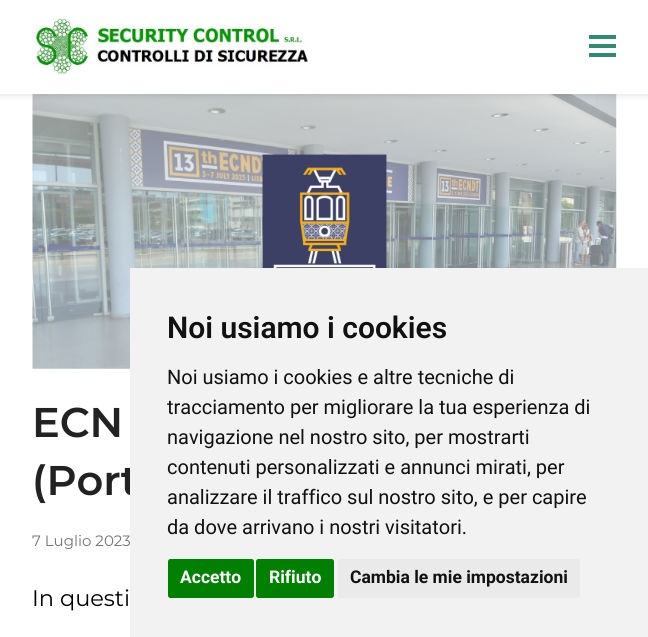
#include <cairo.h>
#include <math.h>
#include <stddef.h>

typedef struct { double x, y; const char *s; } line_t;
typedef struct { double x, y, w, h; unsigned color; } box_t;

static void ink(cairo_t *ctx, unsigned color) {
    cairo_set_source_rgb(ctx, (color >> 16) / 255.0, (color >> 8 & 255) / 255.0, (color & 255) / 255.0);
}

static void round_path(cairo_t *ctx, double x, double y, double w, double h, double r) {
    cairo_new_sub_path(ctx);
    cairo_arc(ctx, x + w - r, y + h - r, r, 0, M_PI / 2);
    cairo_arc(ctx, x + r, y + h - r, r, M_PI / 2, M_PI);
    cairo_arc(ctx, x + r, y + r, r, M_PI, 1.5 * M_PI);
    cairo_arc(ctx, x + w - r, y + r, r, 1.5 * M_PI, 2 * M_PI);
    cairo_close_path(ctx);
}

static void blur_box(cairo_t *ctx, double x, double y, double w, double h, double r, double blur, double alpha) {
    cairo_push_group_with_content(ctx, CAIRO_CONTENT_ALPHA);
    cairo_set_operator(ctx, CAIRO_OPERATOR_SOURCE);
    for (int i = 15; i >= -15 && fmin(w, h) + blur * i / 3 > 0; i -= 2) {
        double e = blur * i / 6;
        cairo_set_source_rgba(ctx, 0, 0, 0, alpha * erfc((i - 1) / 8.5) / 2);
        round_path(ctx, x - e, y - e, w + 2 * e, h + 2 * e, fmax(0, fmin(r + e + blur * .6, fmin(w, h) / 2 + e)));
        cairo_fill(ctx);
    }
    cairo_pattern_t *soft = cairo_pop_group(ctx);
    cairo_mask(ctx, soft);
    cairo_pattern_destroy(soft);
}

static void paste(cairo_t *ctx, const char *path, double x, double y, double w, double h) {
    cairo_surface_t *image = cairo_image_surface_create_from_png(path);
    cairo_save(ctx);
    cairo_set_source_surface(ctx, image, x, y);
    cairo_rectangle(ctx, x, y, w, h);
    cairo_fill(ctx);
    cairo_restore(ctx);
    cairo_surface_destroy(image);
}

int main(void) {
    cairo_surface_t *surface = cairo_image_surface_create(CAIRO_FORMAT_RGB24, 648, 637);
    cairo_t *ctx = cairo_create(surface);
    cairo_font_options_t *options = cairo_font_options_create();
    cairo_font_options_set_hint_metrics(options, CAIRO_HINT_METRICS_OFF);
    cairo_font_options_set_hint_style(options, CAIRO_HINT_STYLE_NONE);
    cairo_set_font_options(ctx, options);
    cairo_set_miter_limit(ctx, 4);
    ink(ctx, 0xFFFFFF);
    cairo_paint(ctx);
    paste(ctx, "media/2.png", 32, 94, 585, 275);
    ink(ctx, 0x000000);
    blur_box(ctx, 0, 3, 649, 93, 0, 3, 0.1);
    ink(ctx, 0xFFFFFF);
    cairo_rectangle(ctx, 0, 0, 648, 94);
    cairo_fill(ctx);
    paste(ctx, "media/1.png", 32, 18, 276, 57);
    {
        static const box_t items[] = {
            {589, 44, 27, 4, 0x2F8B73},
            {589, 35, 27, 4, 0x2F8B73},
            {589, 53, 27, 4, 0x2F8B73},
        };
        for (size_t i = 0; i < sizeof items / sizeof *items; i++) {
            ink(ctx, items[i].color);
            cairo_rectangle(ctx, items[i].x, items[i].y, items[i].w, items[i].h);
            cairo_fill(ctx);
        }
    }
    cairo_select_font_face(ctx, "Montserrat SemiBold", CAIRO_FONT_SLANT_NORMAL, CAIRO_FONT_WEIGHT_NORMAL);
    cairo_set_font_size(ctx, 41.5);
    ink(ctx, 0x222222);
    cairo_move_to(ctx, 32, 437);
    cairo_show_text(ctx, "ECN");
    cairo_move_to(ctx, 32, 495);
    cairo_show_text(ctx, "(Port");
    cairo_select_font_face(ctx, "Montserrat", CAIRO_FONT_SLANT_NORMAL, CAIRO_FONT_WEIGHT_NORMAL);
    cairo_set_font_size(ctx, 15);
    ink(ctx, 0x757575);
    cairo_move_to(ctx, 32, 546);
    cairo_show_text(ctx, "7 Luglio 2023");
    cairo_set_font_size(ctx, 22.5);
    ink(ctx, 0x000000);
    cairo_move_to(ctx, 32, 606);
    cairo_show_text(ctx, "In questi");
    ink(ctx, 0xF2F2F2);
    cairo_rectangle(ctx, 130, 268, 518, 369);
    cairo_fill(ctx);
    cairo_select_font_face(ctx, "Roboto SemiBold", CAIRO_FONT_SLANT_NORMAL, CAIRO_FONT_WEIGHT_NORMAL);
    cairo_set_font_size(ctx, 30);
    ink(ctx, 0x111111);
    cairo_move_to(ctx, 167, 338);
    cairo_show_text(ctx, "Noi usiamo i cookies");
    cairo_select_font_face(ctx, "Roboto", CAIRO_FONT_SLANT_NORMAL, CAIRO_FONT_WEIGHT_NORMAL);
    cairo_set_font_size(ctx, 20);
    {
        static const line_t items[] = {
            {167, 384, "Noi usiamo i cookies e altre tecniche di"},
            {167, 414, "tracciamento per migliorare la tua esperienza di"},
            {167, 444, "navigazione nel nostro sito, per mostrarti"},
            {167, 474, "contenuti personalizzati e annunci mirati, per"},
            {167, 504, "analizzare il traffico sul nostro sito, e per capire"},
            {167, 534, "da dove arrivano i nostri visitatori."},
        };
        for (size_t i = 0; i < sizeof items / sizeof *items; i++) {
            cairo_move_to(ctx, items[i].x, items[i].y);
            cairo_show_text(ctx, items[i].s);
        }
    }
    ink(ctx, 0x008000);
    round_path(ctx, 168, 559, 86, 39, 2.5);
    cairo_fill(ctx);
    cairo_select_font_face(ctx, "Roboto", CAIRO_FONT_SLANT_NORMAL, CAIRO_FONT_WEIGHT_BOLD);
    cairo_set_font_size(ctx, 17.5);
    ink(ctx, 0xFFFFFF);
    cairo_move_to(ctx, 180, 583);
    cairo_show_text(ctx, "Accetto");
    ink(ctx, 0x008000);
    round_path(ctx, 256, 559, 78, 39, 2.5);
    cairo_fill(ctx);
    ink(ctx, 0xFFFFFF);
    cairo_move_to(ctx, 269, 583);
    cairo_show_text(ctx, "Rifiuto");
    ink(ctx, 0xEAEAEA);
    round_path(ctx, 338, 559, 242, 39, 2.5);
    cairo_fill(ctx);
    ink(ctx, 0x111111);
    cairo_move_to(ctx, 350, 583);
    cairo_show_text(ctx, "Cambia le mie impostazioni");
    cairo_surface_write_to_png(surface, "image.png");
    cairo_font_options_destroy(options);
    cairo_destroy(ctx);
    cairo_surface_destroy(surface);
    return 0;
}
